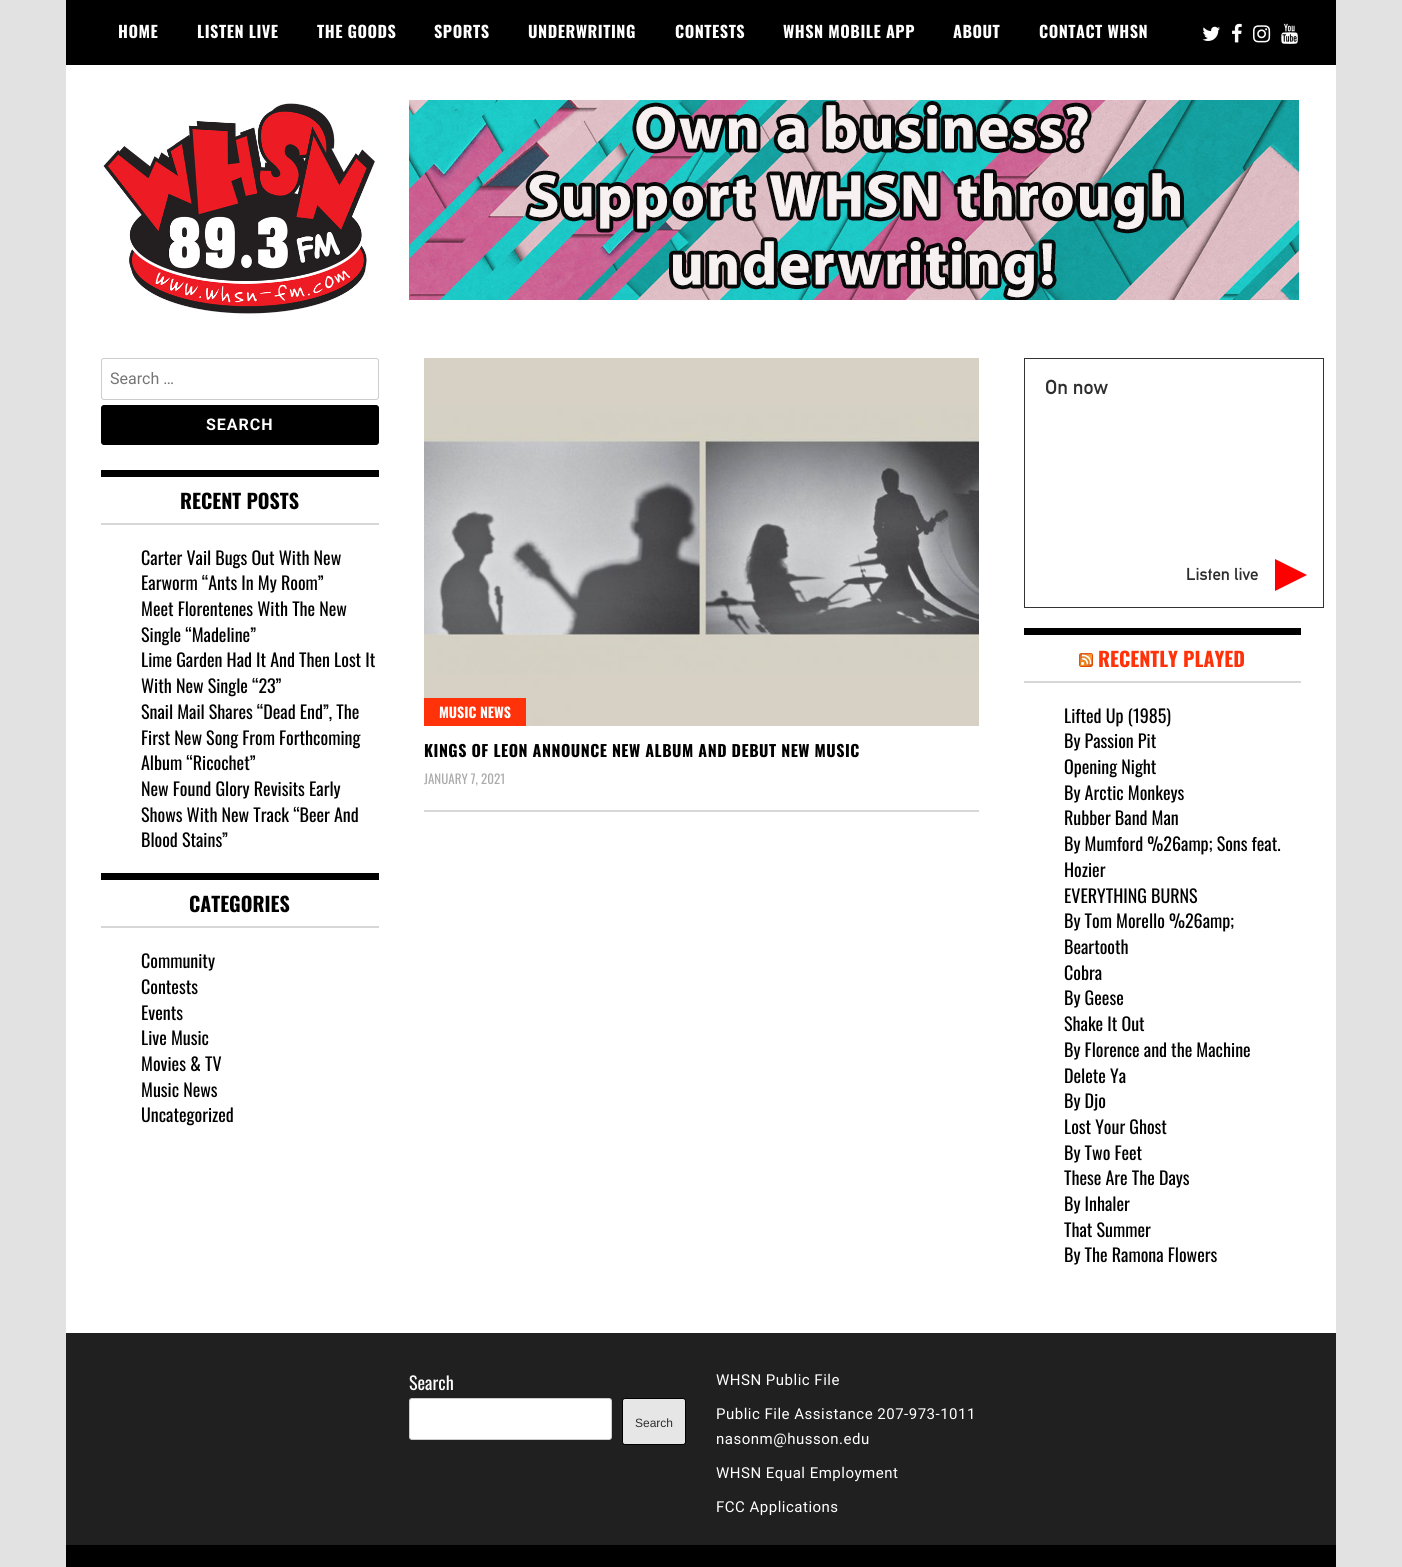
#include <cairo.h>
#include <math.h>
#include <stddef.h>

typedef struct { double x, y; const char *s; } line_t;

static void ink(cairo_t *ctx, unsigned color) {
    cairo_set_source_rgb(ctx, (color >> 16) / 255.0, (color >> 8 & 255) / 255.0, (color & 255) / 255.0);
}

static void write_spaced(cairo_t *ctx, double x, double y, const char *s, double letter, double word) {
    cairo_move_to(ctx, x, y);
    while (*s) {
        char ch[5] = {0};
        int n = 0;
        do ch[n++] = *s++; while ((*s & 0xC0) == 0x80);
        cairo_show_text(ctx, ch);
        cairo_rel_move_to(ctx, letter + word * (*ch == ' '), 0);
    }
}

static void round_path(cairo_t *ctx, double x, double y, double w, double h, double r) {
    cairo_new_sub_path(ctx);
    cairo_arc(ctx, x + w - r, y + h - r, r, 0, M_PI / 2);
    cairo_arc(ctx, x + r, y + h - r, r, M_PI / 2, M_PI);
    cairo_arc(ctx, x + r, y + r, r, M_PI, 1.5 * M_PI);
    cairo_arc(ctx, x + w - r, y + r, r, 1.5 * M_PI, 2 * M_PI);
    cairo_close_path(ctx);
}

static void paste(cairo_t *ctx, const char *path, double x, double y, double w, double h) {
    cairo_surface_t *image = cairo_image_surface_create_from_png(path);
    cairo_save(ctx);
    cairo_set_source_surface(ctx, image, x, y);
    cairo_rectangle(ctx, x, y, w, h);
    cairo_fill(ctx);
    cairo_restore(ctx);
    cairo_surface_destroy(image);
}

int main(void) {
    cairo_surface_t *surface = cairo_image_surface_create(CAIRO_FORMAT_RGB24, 1402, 1567);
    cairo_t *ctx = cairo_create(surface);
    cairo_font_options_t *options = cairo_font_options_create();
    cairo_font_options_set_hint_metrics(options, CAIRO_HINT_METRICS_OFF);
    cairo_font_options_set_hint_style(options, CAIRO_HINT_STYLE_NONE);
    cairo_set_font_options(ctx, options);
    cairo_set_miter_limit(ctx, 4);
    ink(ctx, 0xE2E2E2);
    cairo_paint(ctx);
    ink(ctx, 0xFFFFFF);
    cairo_rectangle(ctx, 66, 65, 1270, 1268);
    cairo_fill(ctx);
    ink(ctx, 0x000000);
    cairo_rectangle(ctx, 66, 0, 1270, 65);
    cairo_fill(ctx);
    cairo_select_font_face(ctx, "Oswald", CAIRO_FONT_SLANT_NORMAL, CAIRO_FONT_WEIGHT_BOLD);
    cairo_set_font_size(ctx, 16.25);
    ink(ctx, 0xFFFFFF);
    {
        static const line_t items[] = {
            {118, 38, "HOME"},
            {197, 38, "LISTEN LIVE"},
            {317, 38, "THE GOODS"},
            {434, 38, "SPORTS"},
            {528, 38, "UNDERWRITING"},
            {675, 38, "CONTESTS"},
            {783, 38, "WHSN MOBILE APP"},
            {953, 38, "ABOUT"},
            {1039, 38, "CONTACT WHSN"},
        };
        for (size_t i = 0; i < sizeof items / sizeof *items; i++) {
            write_spaced(ctx, items[i].x, items[i].y, items[i].s, 0.5, 0);
        }
    }
    paste(ctx, "media/1.png", 1202, 26, 18, 15);
    paste(ctx, "media/2.png", 1232, 23, 10, 20);
    paste(ctx, "media/3.png", 1253, 25, 18, 18);
    paste(ctx, "media/4.png", 1281, 23, 17, 21);
    paste(ctx, "media/5.png", 103, 103, 272, 211);
    paste(ctx, "media/6.png", 409, 100, 890, 200);
    round_path(ctx, 101.5, 358.5, 277, 41, 2.5);
    ink(ctx, 0xCCCCCC);
    cairo_set_line_width(ctx, 1);
    cairo_stroke(ctx);
    cairo_select_font_face(ctx, "Roboto", CAIRO_FONT_SLANT_NORMAL, CAIRO_FONT_WEIGHT_NORMAL);
    cairo_set_font_size(ctx, 16);
    ink(ctx, 0x757575);
    cairo_move_to(ctx, 110, 384);
    cairo_show_text(ctx, "Search …");
    ink(ctx, 0x000000);
    round_path(ctx, 101.5, 405.5, 277, 39, 2.5);
    cairo_fill_preserve(ctx);
    cairo_stroke(ctx);
    cairo_select_font_face(ctx, "Roboto", CAIRO_FONT_SLANT_NORMAL, CAIRO_FONT_WEIGHT_BOLD);
    ink(ctx, 0xFFFFFF);
    write_spaced(ctx, 206, 430, "SEARCH", 1, 0);
    ink(ctx, 0x000000);
    cairo_rectangle(ctx, 101, 470, 278, 7);
    cairo_fill(ctx);
    ink(ctx, 0xD7D7D7);
    cairo_rectangle(ctx, 101, 523, 278, 2);
    cairo_fill(ctx);
    cairo_select_font_face(ctx, "Oswald", CAIRO_FONT_SLANT_NORMAL, CAIRO_FONT_WEIGHT_BOLD);
    cairo_set_font_size(ctx, 20);
    ink(ctx, 0x000000);
    cairo_move_to(ctx, 180, 509);
    cairo_show_text(ctx, "RECENT POSTS");
    cairo_select_font_face(ctx, "Oswald", CAIRO_FONT_SLANT_NORMAL, CAIRO_FONT_WEIGHT_NORMAL);
    cairo_set_font_size(ctx, 18);
    {
        static const line_t items[] = {
            {141, 565, "Carter Vail Bugs Out With New"},
            {141, 590, "Earworm “Ants In My Room”"},
            {141, 616, "Meet Florentenes With The New"},
            {141, 642, "Single “Madeline”"},
            {141, 667, "Lime Garden Had It And Then Lost It"},
            {141, 693, "With New Single “23”"},
            {141, 719, "Snail Mail Shares “Dead End”, The"},
            {141, 745, "First New Song From Forthcoming"},
            {141, 770, "Album “Ricochet”"},
            {141, 796, "New Found Glory Revisits Early"},
            {141, 822, "Shows With New Track “Beer And"},
            {141, 847, "Blood Stains”"},
        };
        for (size_t i = 0; i < sizeof items / sizeof *items; i++) {
            cairo_move_to(ctx, items[i].x, items[i].y);
            cairo_show_text(ctx, items[i].s);
        }
    }
    cairo_rectangle(ctx, 101, 873, 278, 7);
    cairo_fill(ctx);
    ink(ctx, 0xD7D7D7);
    cairo_rectangle(ctx, 101, 926, 278, 2);
    cairo_fill(ctx);
    cairo_select_font_face(ctx, "Oswald", CAIRO_FONT_SLANT_NORMAL, CAIRO_FONT_WEIGHT_BOLD);
    cairo_set_font_size(ctx, 20);
    ink(ctx, 0x000000);
    cairo_move_to(ctx, 189, 912);
    cairo_show_text(ctx, "CATEGORIES");
    cairo_select_font_face(ctx, "Oswald", CAIRO_FONT_SLANT_NORMAL, CAIRO_FONT_WEIGHT_NORMAL);
    cairo_set_font_size(ctx, 18);
    {
        static const line_t items[] = {
            {141, 968, "Community"},
            {141, 994, "Contests"},
            {141, 1020, "Events"},
            {141, 1045, "Live Music"},
            {141, 1071, "Movies & TV"},
            {141, 1097, "Music News"},
            {141, 1122, "Uncategorized"},
        };
        for (size_t i = 0; i < sizeof items / sizeof *items; i++) {
            cairo_move_to(ctx, items[i].x, items[i].y);
            cairo_show_text(ctx, items[i].s);
        }
    }
    ink(ctx, 0xD7D7D7);
    cairo_rectangle(ctx, 424, 810, 555, 2);
    cairo_fill(ctx);
    paste(ctx, "media/7.png", 424, 358, 555, 368);
    ink(ctx, 0xFF3209);
    cairo_rectangle(ctx, 424, 698, 102, 28);
    cairo_fill(ctx);
    cairo_select_font_face(ctx, "Oswald", CAIRO_FONT_SLANT_NORMAL, CAIRO_FONT_WEIGHT_BOLD);
    cairo_set_font_size(ctx, 14);
    ink(ctx, 0xFFFFFF);
    cairo_move_to(ctx, 439, 718);
    cairo_show_text(ctx, "MUSIC NEWS");
    cairo_set_font_size(ctx, 16);
    ink(ctx, 0x000000);
    write_spaced(ctx, 424, 757, "KINGS OF LEON ANNOUNCE NEW ALBUM AND DEBUT NEW MUSIC", 0.5, 0);
    cairo_select_font_face(ctx, "Oswald", CAIRO_FONT_SLANT_NORMAL, CAIRO_FONT_WEIGHT_NORMAL);
    cairo_set_font_size(ctx, 13);
    ink(ctx, 0xABABAB);
    cairo_move_to(ctx, 424, 784);
    cairo_show_text(ctx, "JANUARY 7, 2021");
    cairo_rectangle(ctx, 1024.5, 358.5, 299, 249);
    ink(ctx, 0x333333);
    cairo_stroke(ctx);
    cairo_select_font_face(ctx, "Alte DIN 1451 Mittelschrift", CAIRO_FONT_SLANT_NORMAL, CAIRO_FONT_WEIGHT_NORMAL);
    cairo_set_font_size(ctx, 20);
    ink(ctx, 0x2E2E2E);
    cairo_move_to(ctx, 1045, 394);
    cairo_show_text(ctx, "On now");
    cairo_set_font_size(ctx, 17);
    cairo_move_to(ctx, 1186, 580);
    cairo_show_text(ctx, "Listen live");
    ink(ctx, 0xFF0000);
    cairo_new_path(ctx);
    cairo_move_to(ctx, 1275, 591);
    cairo_line_to(ctx, 1275, 559);
    cairo_line_to(ctx, 1307, 575);
    cairo_close_path(ctx);
    cairo_fill(ctx);
    ink(ctx, 0x000000);
    cairo_rectangle(ctx, 1024, 628, 277, 7);
    cairo_fill(ctx);
    ink(ctx, 0xD7D7D7);
    cairo_rectangle(ctx, 1024, 681, 277, 2);
    cairo_fill(ctx);
    paste(ctx, "media/8.png", 1079, 653, 14, 14);
    cairo_select_font_face(ctx, "Oswald", CAIRO_FONT_SLANT_NORMAL, CAIRO_FONT_WEIGHT_BOLD);
    cairo_set_font_size(ctx, 20);
    ink(ctx, 0xFF3209);
    cairo_move_to(ctx, 1098, 667);
    cairo_show_text(ctx, "RECENTLY PLAYED");
    cairo_select_font_face(ctx, "Oswald", CAIRO_FONT_SLANT_NORMAL, CAIRO_FONT_WEIGHT_NORMAL);
    cairo_set_font_size(ctx, 18);
    ink(ctx, 0x000000);
    {
        static const line_t items[] = {
            {1064, 723, "Lifted Up (1985)"},
            {1064, 748, "By Passion Pit"},
            {1064, 774, "Opening Night"},
            {1064, 800, "By Arctic Monkeys"},
            {1064, 825, "Rubber Band Man"},
            {1064, 851, "By Mumford %26amp; Sons feat."},
            {1064, 877, "Hozier"},
            {1064, 903, "EVERYTHING BURNS"},
            {1064, 928, "By Tom Morello %26amp;"},
            {1064, 954, "Beartooth"},
            {1064, 980, "Cobra"},
            {1064, 1005, "By Geese"},
            {1064, 1031, "Shake It Out"},
            {1064, 1057, "By Florence and the Machine"},
            {1064, 1083, "Delete Ya"},
            {1064, 1108, "By Djo"},
            {1064, 1134, "Lost Your Ghost"},
            {1064, 1160, "By Two Feet"},
            {1064, 1185, "These Are The Days"},
            {1064, 1211, "By Inhaler"},
            {1064, 1237, "That Summer"},
            {1064, 1262, "By The Ramona Flowers"},
        };
        for (size_t i = 0; i < sizeof items / sizeof *items; i++) {
            cairo_move_to(ctx, items[i].x, items[i].y);
            cairo_show_text(ctx, items[i].s);
        }
    }
    ink(ctx, 0x202020);
    cairo_rectangle(ctx, 66, 1333, 1270, 212);
    cairo_fill(ctx);
    ink(ctx, 0xFFFFFF);
    cairo_move_to(ctx, 409, 1390);
    cairo_show_text(ctx, "Search");
    round_path(ctx, 409.5, 1398.5, 202, 41, 2.5);
    cairo_fill_preserve(ctx);
    ink(ctx, 0xCCCCCC);
    cairo_stroke(ctx);
    ink(ctx, 0xE6E6E6);
    round_path(ctx, 622.5, 1398.5, 63, 46, 2.5);
    cairo_fill_preserve(ctx);
    ink(ctx, 0x000000);
    cairo_stroke(ctx);
    cairo_select_font_face(ctx, "Liberation Sans", CAIRO_FONT_SLANT_NORMAL, CAIRO_FONT_WEIGHT_NORMAL);
    cairo_set_font_size(ctx, 12);
    ink(ctx, 0x2E2E2E);
    cairo_move_to(ctx, 635, 1427);
    cairo_show_text(ctx, "Search");
    cairo_select_font_face(ctx, "Roboto", CAIRO_FONT_SLANT_NORMAL, CAIRO_FONT_WEIGHT_NORMAL);
    cairo_set_font_size(ctx, 15);
    ink(ctx, 0xFFFFFF);
    {
        static const line_t items[] = {
            {716, 1385, "WHSN Public File"},
            {716, 1419, "Public File Assistance 207-973-1011"},
            {716, 1444, "nasonm@husson.edu"},
            {716, 1478, "WHSN Equal Employment"},
            {716, 1512, "FCC Applications"},
        };
        for (size_t i = 0; i < sizeof items / sizeof *items; i++) {
            write_spaced(ctx, items[i].x, items[i].y, items[i].s, 0.5, 0);
        }
    }
    ink(ctx, 0x000000);
    cairo_rectangle(ctx, 66, 1545, 1270, 22);
    cairo_fill(ctx);
    cairo_surface_write_to_png(surface, "image.png");
    cairo_font_options_destroy(options);
    cairo_destroy(ctx);
    cairo_surface_destroy(surface);
    return 0;
}
